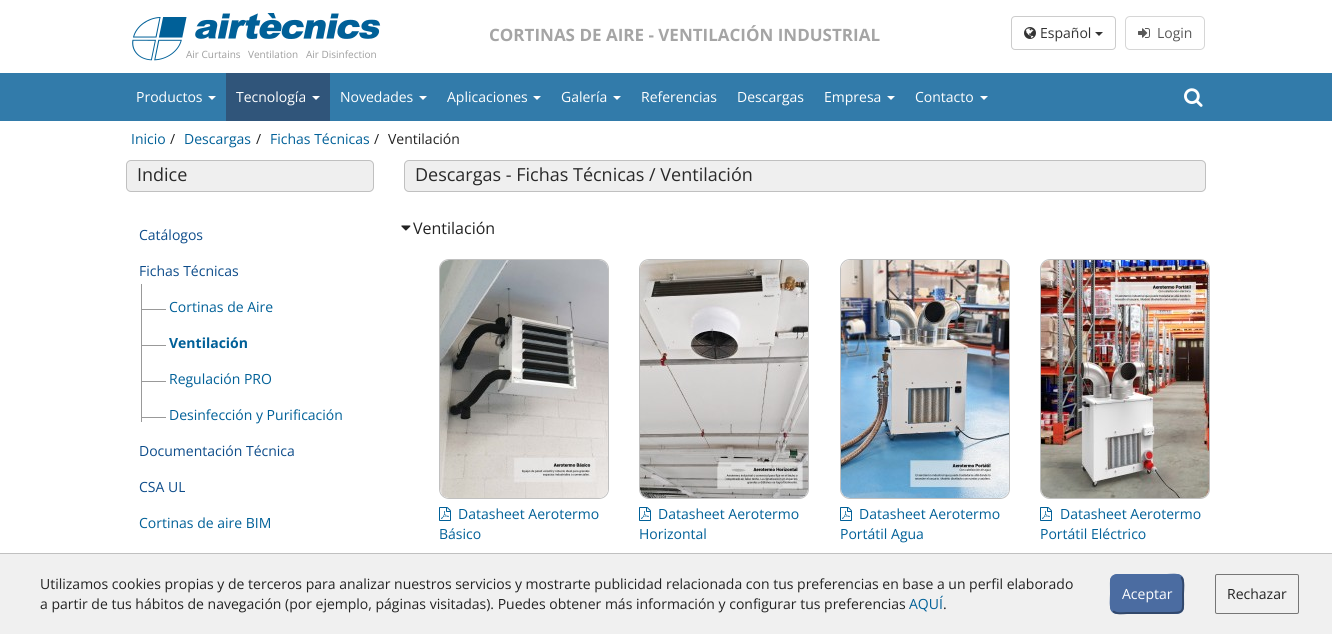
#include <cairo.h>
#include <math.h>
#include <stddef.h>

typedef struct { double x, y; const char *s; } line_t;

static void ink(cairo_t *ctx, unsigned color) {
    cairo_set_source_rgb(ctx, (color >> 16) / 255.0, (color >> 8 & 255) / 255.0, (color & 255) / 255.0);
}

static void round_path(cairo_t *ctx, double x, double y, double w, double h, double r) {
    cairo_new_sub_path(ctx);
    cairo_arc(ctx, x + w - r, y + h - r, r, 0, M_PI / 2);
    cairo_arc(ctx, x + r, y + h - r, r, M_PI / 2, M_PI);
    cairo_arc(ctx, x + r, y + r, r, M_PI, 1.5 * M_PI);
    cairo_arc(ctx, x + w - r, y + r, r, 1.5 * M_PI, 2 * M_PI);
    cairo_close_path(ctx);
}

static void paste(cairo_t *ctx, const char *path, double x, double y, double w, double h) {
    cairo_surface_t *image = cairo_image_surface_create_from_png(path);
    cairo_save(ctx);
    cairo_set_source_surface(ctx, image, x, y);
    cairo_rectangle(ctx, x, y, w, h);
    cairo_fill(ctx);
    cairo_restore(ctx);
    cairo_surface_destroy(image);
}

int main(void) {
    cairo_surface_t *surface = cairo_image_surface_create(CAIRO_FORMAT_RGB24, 1332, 634);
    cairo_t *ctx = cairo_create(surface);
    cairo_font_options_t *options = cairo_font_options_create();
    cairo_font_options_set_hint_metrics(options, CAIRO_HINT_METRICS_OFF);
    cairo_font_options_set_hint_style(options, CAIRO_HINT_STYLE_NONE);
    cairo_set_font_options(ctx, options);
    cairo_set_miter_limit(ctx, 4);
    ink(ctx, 0xFFFFFF);
    cairo_paint(ctx);
    cairo_select_font_face(ctx, "Open Sans", CAIRO_FONT_SLANT_NORMAL, CAIRO_FONT_WEIGHT_BOLD);
    cairo_set_font_size(ctx, 17);
    ink(ctx, 0xA5A5A5);
    cairo_move_to(ctx, 489, 41);
    cairo_show_text(ctx, "CORTINAS DE AIRE - VENTILACIÓN INDUSTRIAL");
    round_path(ctx, 1011.5, 16.5, 104, 33, 3.5);
    ink(ctx, 0xCCCCCC);
    cairo_set_line_width(ctx, 1);
    cairo_stroke(ctx);
    paste(ctx, "media/1.png", 1024, 27, 12, 12);
    cairo_select_font_face(ctx, "Open Sans", CAIRO_FONT_SLANT_NORMAL, CAIRO_FONT_WEIGHT_NORMAL);
    cairo_set_font_size(ctx, 14);
    ink(ctx, 0x333333);
    cairo_move_to(ctx, 1040, 38);
    cairo_show_text(ctx, "Español");
    cairo_new_path(ctx);
    cairo_move_to(ctx, 1095, 32);
    cairo_line_to(ctx, 1103, 32);
    cairo_line_to(ctx, 1099, 36);
    cairo_close_path(ctx);
    cairo_fill(ctx);
    round_path(ctx, 1125.5, 16.5, 79, 33, 4.5);
    ink(ctx, 0xD6D6D6);
    cairo_stroke(ctx);
    paste(ctx, "media/2.png", 1138, 28, 12, 10);
    ink(ctx, 0x595959);
    cairo_move_to(ctx, 1157, 38);
    cairo_show_text(ctx, "Login");
    paste(ctx, "media/3.png", 132, 13, 249, 48);
    cairo_set_font_size(ctx, 10);
    ink(ctx, 0x9E9E9E);
    {
        static const line_t items[] = {
            {186, 58, "Air Curtains"},
            {248, 58, "Ventilation"},
            {306, 58, "Air Disinfection"},
        };
        for (size_t i = 0; i < sizeof items / sizeof *items; i++) {
            cairo_move_to(ctx, items[i].x, items[i].y);
            cairo_show_text(ctx, items[i].s);
        }
    }
    ink(ctx, 0x327BAA);
    cairo_rectangle(ctx, 0, 73, 1332, 48);
    cairo_fill(ctx);
    cairo_set_font_size(ctx, 14);
    ink(ctx, 0xFFFFFF);
    cairo_move_to(ctx, 136, 102);
    cairo_show_text(ctx, "Productos");
    cairo_new_path(ctx);
    cairo_move_to(ctx, 208, 96);
    cairo_line_to(ctx, 216, 96);
    cairo_line_to(ctx, 212, 100);
    cairo_close_path(ctx);
    cairo_fill(ctx);
    ink(ctx, 0x30557A);
    cairo_rectangle(ctx, 226, 73, 104, 48);
    cairo_fill(ctx);
    ink(ctx, 0xFFFFFF);
    cairo_move_to(ctx, 236, 102);
    cairo_show_text(ctx, "Tecnología");
    cairo_new_path(ctx);
    cairo_move_to(ctx, 312, 96);
    cairo_line_to(ctx, 320, 96);
    cairo_line_to(ctx, 316, 100);
    cairo_close_path(ctx);
    cairo_fill(ctx);
    cairo_move_to(ctx, 340, 102);
    cairo_show_text(ctx, "Novedades");
    cairo_new_path(ctx);
    cairo_move_to(ctx, 419, 96);
    cairo_line_to(ctx, 427, 96);
    cairo_line_to(ctx, 423, 100);
    cairo_close_path(ctx);
    cairo_fill(ctx);
    cairo_move_to(ctx, 447, 102);
    cairo_show_text(ctx, "Aplicaciones");
    cairo_new_path(ctx);
    cairo_move_to(ctx, 533, 96);
    cairo_line_to(ctx, 541, 96);
    cairo_line_to(ctx, 537, 100);
    cairo_close_path(ctx);
    cairo_fill(ctx);
    cairo_move_to(ctx, 561, 102);
    cairo_show_text(ctx, "Galería");
    cairo_new_path(ctx);
    cairo_move_to(ctx, 613, 96);
    cairo_line_to(ctx, 621, 96);
    cairo_line_to(ctx, 617, 100);
    cairo_close_path(ctx);
    cairo_fill(ctx);
    {
        static const line_t items[] = {
            {641, 102, "Referencias"},
            {737, 102, "Descargas"},
            {824, 102, "Empresa"},
        };
        for (size_t i = 0; i < sizeof items / sizeof *items; i++) {
            cairo_move_to(ctx, items[i].x, items[i].y);
            cairo_show_text(ctx, items[i].s);
        }
    }
    cairo_new_path(ctx);
    cairo_move_to(ctx, 887, 96);
    cairo_line_to(ctx, 895, 96);
    cairo_line_to(ctx, 891, 100);
    cairo_close_path(ctx);
    cairo_fill(ctx);
    cairo_move_to(ctx, 915, 102);
    cairo_show_text(ctx, "Contacto");
    cairo_new_path(ctx);
    cairo_move_to(ctx, 980, 96);
    cairo_line_to(ctx, 988, 96);
    cairo_line_to(ctx, 984, 100);
    cairo_close_path(ctx);
    cairo_fill(ctx);
    paste(ctx, "media/4.png", 1184, 88, 19, 19);
    ink(ctx, 0x006098);
    cairo_move_to(ctx, 131, 144);
    cairo_show_text(ctx, "Inicio");
    ink(ctx, 0x222222);
    cairo_move_to(ctx, 170, 144);
    cairo_show_text(ctx, "/");
    ink(ctx, 0x006098);
    cairo_move_to(ctx, 184, 144);
    cairo_show_text(ctx, "Descargas");
    ink(ctx, 0x222222);
    cairo_move_to(ctx, 256, 144);
    cairo_show_text(ctx, "/");
    ink(ctx, 0x006098);
    cairo_move_to(ctx, 270, 144);
    cairo_show_text(ctx, "Fichas Técnicas");
    ink(ctx, 0x222222);
    cairo_move_to(ctx, 374, 144);
    cairo_show_text(ctx, "/");
    cairo_move_to(ctx, 388, 144);
    cairo_show_text(ctx, "Ventilación");
    ink(ctx, 0xEFEFEF);
    round_path(ctx, 126.5, 160.5, 247, 31, 4.5);
    cairo_fill_preserve(ctx);
    ink(ctx, 0xC0C0C0);
    cairo_stroke(ctx);
    cairo_set_font_size(ctx, 18);
    ink(ctx, 0x292929);
    cairo_move_to(ctx, 137, 181);
    cairo_show_text(ctx, "Indice");
    cairo_set_font_size(ctx, 14);
    ink(ctx, 0x0D4C8A);
    cairo_move_to(ctx, 139, 240);
    cairo_show_text(ctx, "Catálogos");
    cairo_move_to(ctx, 139, 276);
    cairo_show_text(ctx, "Fichas Técnicas");
    ink(ctx, 0x999999);
    cairo_rectangle(ctx, 141, 284, 1, 138);
    cairo_fill(ctx);
    ink(ctx, 0x006098);
    cairo_move_to(ctx, 169, 312);
    cairo_show_text(ctx, "Cortinas de Aire");
    ink(ctx, 0x999999);
    cairo_rectangle(ctx, 141, 309, 25, 1);
    cairo_fill(ctx);
    cairo_rectangle(ctx, 141, 345, 25, 1);
    cairo_fill(ctx);
    cairo_select_font_face(ctx, "Open Sans", CAIRO_FONT_SLANT_NORMAL, CAIRO_FONT_WEIGHT_BOLD);
    ink(ctx, 0x006098);
    cairo_move_to(ctx, 169, 348);
    cairo_show_text(ctx, "Ventilación");
    ink(ctx, 0x999999);
    cairo_rectangle(ctx, 141, 381, 25, 1);
    cairo_fill(ctx);
    cairo_select_font_face(ctx, "Open Sans", CAIRO_FONT_SLANT_NORMAL, CAIRO_FONT_WEIGHT_NORMAL);
    ink(ctx, 0x006098);
    cairo_move_to(ctx, 169, 384);
    cairo_show_text(ctx, "Regulación PRO");
    ink(ctx, 0x999999);
    cairo_rectangle(ctx, 141, 417, 25, 1);
    cairo_fill(ctx);
    ink(ctx, 0x006098);
    cairo_move_to(ctx, 169, 420);
    cairo_show_text(ctx, "Desinfección y Purificación");
    ink(ctx, 0x0D4C8A);
    cairo_move_to(ctx, 139, 456);
    cairo_show_text(ctx, "Documentación Técnica");
    cairo_move_to(ctx, 139, 492);
    cairo_show_text(ctx, "CSA UL");
    ink(ctx, 0x006098);
    cairo_move_to(ctx, 139, 528);
    cairo_show_text(ctx, "Cortinas de aire BIM");
    ink(ctx, 0xEFEFEF);
    round_path(ctx, 404.5, 160.5, 801, 31, 4.5);
    cairo_fill_preserve(ctx);
    ink(ctx, 0xC0C0C0);
    cairo_stroke(ctx);
    cairo_set_font_size(ctx, 18);
    ink(ctx, 0x292929);
    cairo_move_to(ctx, 415, 181);
    cairo_show_text(ctx, "Descargas - Fichas Técnicas / Ventilación");
    paste(ctx, "media/5.png", 401, 225, 10, 6);
    cairo_set_font_size(ctx, 16);
    ink(ctx, 0x222222);
    cairo_move_to(ctx, 413, 234);
    cairo_show_text(ctx, "Ventilación");
    round_path(ctx, 439.5, 259.5, 169, 239, 9.5);
    ink(ctx, 0xC0C0C0);
    cairo_stroke(ctx);
    paste(ctx, "media/6.png", 440, 260, 168, 238);
    paste(ctx, "media/7.png", 439, 507, 12, 14);
    cairo_set_font_size(ctx, 14);
    ink(ctx, 0x006098);
    cairo_move_to(ctx, 458, 519);
    cairo_show_text(ctx, "Datasheet Aerotermo");
    cairo_move_to(ctx, 439, 539);
    cairo_show_text(ctx, "Básico");
    round_path(ctx, 639.5, 259.5, 169, 239, 9.5);
    ink(ctx, 0xC0C0C0);
    cairo_stroke(ctx);
    paste(ctx, "media/8.png", 640, 260, 168, 238);
    paste(ctx, "media/7.png", 639, 507, 12, 14);
    ink(ctx, 0x006098);
    cairo_move_to(ctx, 658, 519);
    cairo_show_text(ctx, "Datasheet Aerotermo");
    cairo_move_to(ctx, 639, 539);
    cairo_show_text(ctx, "Horizontal");
    round_path(ctx, 840.5, 259.5, 169, 239, 9.5);
    ink(ctx, 0xC0C0C0);
    cairo_stroke(ctx);
    paste(ctx, "media/9.png", 841, 260, 168, 238);
    paste(ctx, "media/7.png", 840, 507, 12, 14);
    ink(ctx, 0x006098);
    cairo_move_to(ctx, 859, 519);
    cairo_show_text(ctx, "Datasheet Aerotermo");
    cairo_move_to(ctx, 840, 539);
    cairo_show_text(ctx, "Portátil Agua");
    round_path(ctx, 1040.5, 259.5, 169, 239, 9.5);
    ink(ctx, 0xC0C0C0);
    cairo_stroke(ctx);
    paste(ctx, "media/10.png", 1041, 260, 168, 238);
    paste(ctx, "media/7.png", 1040, 507, 12, 14);
    ink(ctx, 0x006098);
    cairo_move_to(ctx, 1060, 519);
    cairo_show_text(ctx, "Datasheet Aerotermo");
    cairo_move_to(ctx, 1040, 539);
    cairo_show_text(ctx, "Portátil Eléctrico");
    ink(ctx, 0xF0F0F0);
    cairo_rectangle(ctx, 0, 554, 1332, 80);
    cairo_fill(ctx);
    ink(ctx, 0xC0C0C0);
    cairo_rectangle(ctx, 0, 553, 1332, 1);
    cairo_fill(ctx);
    ink(ctx, 0x222222);
    cairo_move_to(ctx, 40, 589);
    cairo_show_text(ctx, "Utilizamos cookies propias y de terceros para analizar nuestros servicios y mostrarte publicidad relacionada con tus preferencias en base a un perfil elaborado");
    cairo_move_to(ctx, 40, 609);
    cairo_show_text(ctx, "a partir de tus hábitos de navegación (por ejemplo, páginas visitadas). Puedes obtener más información y configurar tus preferencias");
    ink(ctx, 0x006098);
    cairo_move_to(ctx, 909, 609);
    cairo_show_text(ctx, "AQUÍ");
    ink(ctx, 0x222222);
    cairo_move_to(ctx, 943, 609);
    cairo_show_text(ctx, ".");
    ink(ctx, 0x4B6CA1);
    round_path(ctx, 1110, 574, 74, 40, 7);
    cairo_fill(ctx);
    cairo_new_path(ctx);
    cairo_move_to(ctx, 1181, 577);
    cairo_curve_to(ctx, 1184.5, 580, 1183, 590, 1183, 594);
    cairo_curve_to(ctx, 1183, 612.5, 1185.5, 613, 1167, 613);
    cairo_line_to(ctx, 1127, 613);
    cairo_curve_to(ctx, 1124, 613, 1116, 614.5, 1113, 611);
    ink(ctx, 0x32486B);
    cairo_set_line_width(ctx, 2);
    cairo_stroke(ctx);
    cairo_new_path(ctx);
    cairo_move_to(ctx, 1113, 611);
    cairo_curve_to(ctx, 1109.5, 608, 1111, 598, 1111, 594);
    cairo_curve_to(ctx, 1111, 575.5, 1108.5, 575, 1127, 575);
    cairo_line_to(ctx, 1167, 575);
    cairo_curve_to(ctx, 1170, 575, 1178, 573.5, 1181, 577);
    ink(ctx, 0x4B6CA1);
    cairo_stroke(ctx);
    ink(ctx, 0xFFFFFF);
    cairo_move_to(ctx, 1122, 599);
    cairo_show_text(ctx, "Aceptar");
    round_path(ctx, 1215.5, 574.5, 83, 39, 1.5);
    ink(ctx, 0x767676);
    cairo_set_line_width(ctx, 1);
    cairo_stroke(ctx);
    ink(ctx, 0x222222);
    cairo_move_to(ctx, 1227, 599);
    cairo_show_text(ctx, "Rechazar");
    cairo_surface_write_to_png(surface, "image.png");
    cairo_font_options_destroy(options);
    cairo_destroy(ctx);
    cairo_surface_destroy(surface);
    return 0;
}
